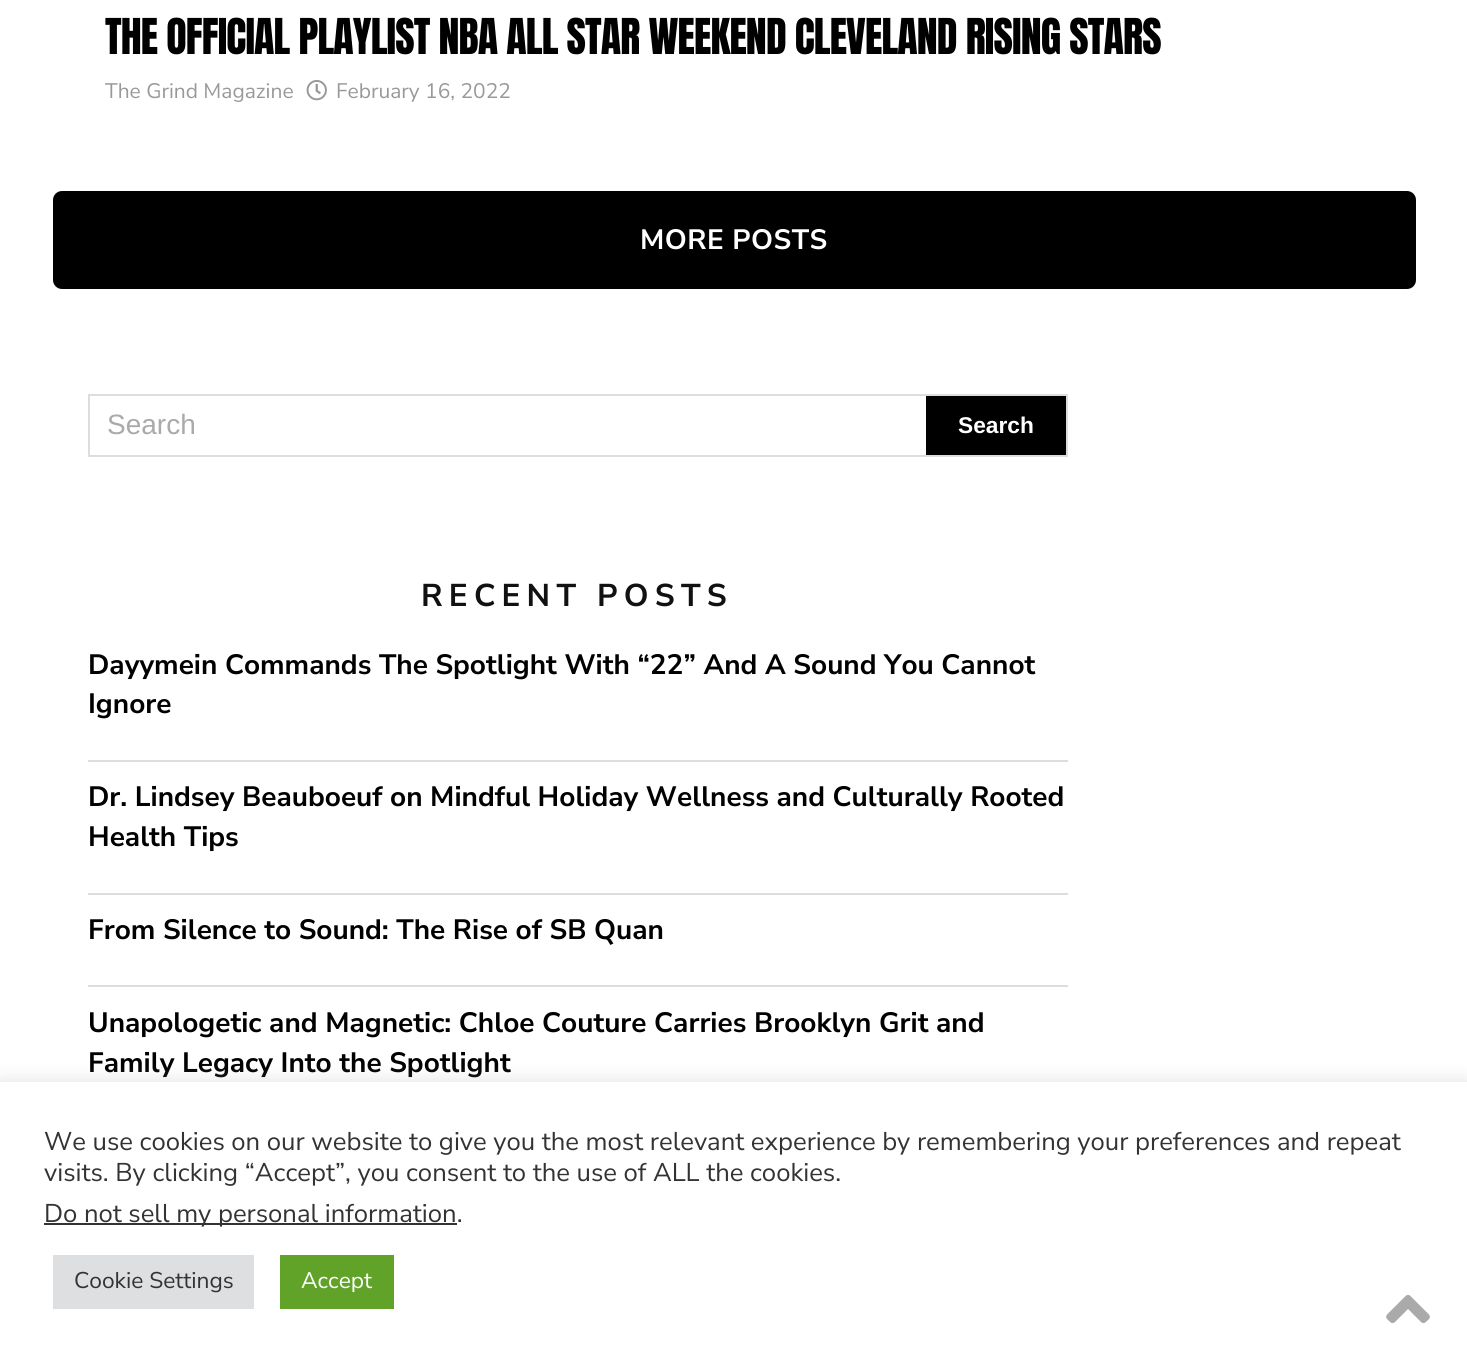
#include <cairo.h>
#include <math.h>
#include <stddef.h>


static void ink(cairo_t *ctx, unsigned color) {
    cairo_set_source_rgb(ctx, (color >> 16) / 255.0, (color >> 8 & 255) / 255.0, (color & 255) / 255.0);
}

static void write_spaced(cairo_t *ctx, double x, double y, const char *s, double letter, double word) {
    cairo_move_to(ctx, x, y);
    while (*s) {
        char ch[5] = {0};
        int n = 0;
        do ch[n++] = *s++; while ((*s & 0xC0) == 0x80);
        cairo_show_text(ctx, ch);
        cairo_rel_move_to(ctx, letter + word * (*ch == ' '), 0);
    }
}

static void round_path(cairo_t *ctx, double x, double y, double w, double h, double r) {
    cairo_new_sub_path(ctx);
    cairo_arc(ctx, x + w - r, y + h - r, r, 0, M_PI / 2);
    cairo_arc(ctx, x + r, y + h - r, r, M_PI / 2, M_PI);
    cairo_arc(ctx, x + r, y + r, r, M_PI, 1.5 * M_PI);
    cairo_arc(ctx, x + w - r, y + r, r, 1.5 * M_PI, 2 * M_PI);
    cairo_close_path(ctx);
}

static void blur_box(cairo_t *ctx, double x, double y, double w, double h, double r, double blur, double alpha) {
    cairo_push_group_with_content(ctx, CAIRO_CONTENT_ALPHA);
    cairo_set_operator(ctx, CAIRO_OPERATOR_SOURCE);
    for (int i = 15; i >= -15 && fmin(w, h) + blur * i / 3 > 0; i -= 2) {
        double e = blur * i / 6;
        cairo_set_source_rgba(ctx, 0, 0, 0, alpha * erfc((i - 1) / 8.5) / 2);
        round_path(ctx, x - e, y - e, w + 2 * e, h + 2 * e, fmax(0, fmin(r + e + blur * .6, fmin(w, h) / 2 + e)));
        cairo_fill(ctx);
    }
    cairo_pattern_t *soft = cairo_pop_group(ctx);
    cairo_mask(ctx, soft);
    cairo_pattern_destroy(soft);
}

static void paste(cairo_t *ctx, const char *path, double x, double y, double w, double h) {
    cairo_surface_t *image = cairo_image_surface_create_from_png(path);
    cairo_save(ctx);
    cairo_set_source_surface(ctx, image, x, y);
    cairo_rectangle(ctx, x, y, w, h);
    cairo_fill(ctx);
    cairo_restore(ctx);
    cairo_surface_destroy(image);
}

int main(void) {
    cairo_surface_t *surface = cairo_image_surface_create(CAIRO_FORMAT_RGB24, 1467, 1361);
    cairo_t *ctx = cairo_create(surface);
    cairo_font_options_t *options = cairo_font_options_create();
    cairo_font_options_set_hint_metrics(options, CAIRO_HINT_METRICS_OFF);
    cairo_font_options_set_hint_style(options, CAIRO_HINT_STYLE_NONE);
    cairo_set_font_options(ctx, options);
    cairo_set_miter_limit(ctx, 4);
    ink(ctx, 0xFFFFFF);
    cairo_paint(ctx);
    cairo_select_font_face(ctx, "Anton", CAIRO_FONT_SLANT_NORMAL, CAIRO_FONT_WEIGHT_NORMAL);
    cairo_set_font_size(ctx, 42);
    ink(ctx, 0x000000);
    write_spaced(ctx, 105, 54, "THE OFFICIAL PLAYLIST NBA ALL STAR WEEKEND CLEVELAND RISING STARS", -0.85, 0);
    cairo_select_font_face(ctx, "Nunito Sans", CAIRO_FONT_SLANT_NORMAL, CAIRO_FONT_WEIGHT_NORMAL);
    cairo_set_font_size(ctx, 21);
    ink(ctx, 0x999999);
    cairo_move_to(ctx, 105, 98);
    cairo_show_text(ctx, "The Grind Magazine");
    paste(ctx, "media/1.png", 306, 80, 21, 21);
    cairo_move_to(ctx, 336, 98);
    cairo_show_text(ctx, "February 16, 2022");
    ink(ctx, 0x000000);
    round_path(ctx, 53, 191, 1363, 98, 9);
    cairo_fill(ctx);
    cairo_select_font_face(ctx, "Nunito Sans", CAIRO_FONT_SLANT_NORMAL, CAIRO_FONT_WEIGHT_BOLD);
    cairo_set_font_size(ctx, 28);
    ink(ctx, 0xFFFFFF);
    write_spaced(ctx, 640, 249, "MORE POSTS", 0.5, 0);
    cairo_rectangle(ctx, 89, 395, 978, 61);
    ink(ctx, 0xDDDDDD);
    cairo_stroke(ctx);
    cairo_select_font_face(ctx, "Liberation Sans", CAIRO_FONT_SLANT_NORMAL, CAIRO_FONT_WEIGHT_NORMAL);
    ink(ctx, 0xAAAAAA);
    cairo_move_to(ctx, 107, 434);
    cairo_show_text(ctx, "Search");
    ink(ctx, 0x000000);
    cairo_rectangle(ctx, 926, 396, 140, 59);
    cairo_fill(ctx);
    cairo_select_font_face(ctx, "Liberation Sans", CAIRO_FONT_SLANT_NORMAL, CAIRO_FONT_WEIGHT_BOLD);
    cairo_set_font_size(ctx, 22.75);
    ink(ctx, 0xFFFFFF);
    cairo_move_to(ctx, 958, 433);
    cairo_show_text(ctx, "Search");
    cairo_select_font_face(ctx, "Nunito Sans", CAIRO_FONT_SLANT_NORMAL, CAIRO_FONT_WEIGHT_BOLD);
    cairo_set_font_size(ctx, 31.5);
    ink(ctx, 0x111111);
    write_spaced(ctx, 421, 606, "RECENT POSTS", 6.25, 0);
    cairo_set_font_size(ctx, 28);
    ink(ctx, 0x000000);
    cairo_move_to(ctx, 88, 674);
    cairo_show_text(ctx, "Dayymein Commands The Spotlight With “22” And A Sound You Cannot");
    cairo_move_to(ctx, 88, 713);
    cairo_show_text(ctx, "Ignore");
    ink(ctx, 0xDDDDDD);
    cairo_rectangle(ctx, 88, 760, 980, 2);
    cairo_fill(ctx);
    ink(ctx, 0x000000);
    cairo_move_to(ctx, 88, 806);
    cairo_show_text(ctx, "Dr. Lindsey Beauboeuf on Mindful Holiday Wellness and Culturally Rooted");
    cairo_move_to(ctx, 88, 846);
    cairo_show_text(ctx, "Health Tips");
    ink(ctx, 0xDDDDDD);
    cairo_rectangle(ctx, 88, 893, 980, 2);
    cairo_fill(ctx);
    ink(ctx, 0x000000);
    cairo_move_to(ctx, 88, 939);
    cairo_show_text(ctx, "From Silence to Sound: The Rise of SB Quan");
    ink(ctx, 0xDDDDDD);
    cairo_rectangle(ctx, 88, 985, 980, 2);
    cairo_fill(ctx);
    ink(ctx, 0x000000);
    cairo_move_to(ctx, 88, 1032);
    cairo_show_text(ctx, "Unapologetic and Magnetic: Chloe Couture Carries Brooklyn Grit and");
    cairo_move_to(ctx, 88, 1072);
    cairo_show_text(ctx, "Family Legacy Into the Spotlight");
    ink(ctx, 0xACABAB);
    blur_box(ctx, 0, 1080, 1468, 280, 0, 9, 0.3);
    ink(ctx, 0xFFFFFF);
    cairo_rectangle(ctx, 0, 1082, 1467, 279);
    cairo_fill(ctx);
    paste(ctx, "media/2.png", 1386, 1295, 44, 28);
    cairo_select_font_face(ctx, "Nunito Sans", CAIRO_FONT_SLANT_NORMAL, CAIRO_FONT_WEIGHT_NORMAL);
    cairo_set_font_size(ctx, 25.67);
    ink(ctx, 0x333333);
    cairo_move_to(ctx, 44, 1150);
    cairo_show_text(ctx, "We use cookies on our website to give you the most relevant experience by remembering your preferences and repeat");
    cairo_move_to(ctx, 44, 1181);
    cairo_show_text(ctx, "visits. By clicking “Accept”, you consent to the use of ALL the cookies.");
    cairo_rectangle(ctx, 44, 1223, 413, 2);
    cairo_fill(ctx);
    cairo_move_to(ctx, 44, 1222);
    cairo_show_text(ctx, "Do not sell my personal information.");
    ink(ctx, 0xDEDFE0);
    cairo_rectangle(ctx, 53, 1255, 201, 54);
    cairo_fill(ctx);
    cairo_set_font_size(ctx, 22.75);
    ink(ctx, 0x333333);
    cairo_move_to(ctx, 74, 1288);
    cairo_show_text(ctx, "Cookie Settings");
    ink(ctx, 0x61A229);
    cairo_rectangle(ctx, 280, 1255, 114, 54);
    cairo_fill(ctx);
    ink(ctx, 0xFFFFFF);
    cairo_move_to(ctx, 301, 1288);
    cairo_show_text(ctx, "Accept");
    cairo_surface_write_to_png(surface, "image.png");
    cairo_font_options_destroy(options);
    cairo_destroy(ctx);
    cairo_surface_destroy(surface);
    return 0;
}
